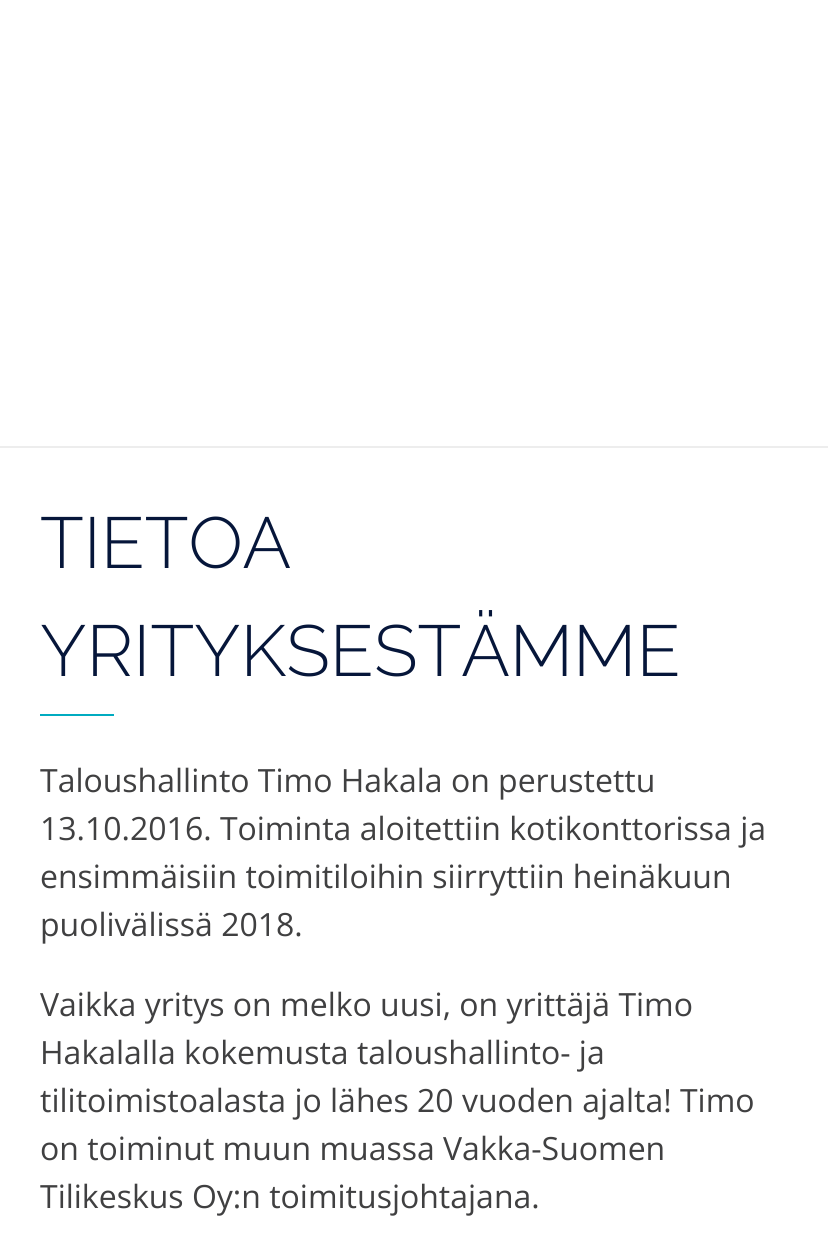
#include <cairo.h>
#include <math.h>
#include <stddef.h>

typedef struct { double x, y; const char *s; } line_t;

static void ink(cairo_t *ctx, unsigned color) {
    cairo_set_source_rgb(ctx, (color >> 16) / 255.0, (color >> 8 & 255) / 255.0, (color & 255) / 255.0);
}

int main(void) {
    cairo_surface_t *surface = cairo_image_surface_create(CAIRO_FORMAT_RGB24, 828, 1251);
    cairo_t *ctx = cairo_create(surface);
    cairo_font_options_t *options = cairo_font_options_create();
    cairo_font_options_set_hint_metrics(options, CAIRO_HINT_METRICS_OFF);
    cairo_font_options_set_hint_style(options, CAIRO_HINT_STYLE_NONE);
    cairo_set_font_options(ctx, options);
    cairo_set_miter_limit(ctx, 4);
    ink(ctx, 0xFFFFFF);
    cairo_paint(ctx);
    ink(ctx, 0xEDEDED);
    cairo_rectangle(ctx, 0, 446, 828, 2);
    cairo_fill(ctx);
    cairo_select_font_face(ctx, "Raleway Light", CAIRO_FONT_SLANT_NORMAL, CAIRO_FONT_WEIGHT_NORMAL);
    cairo_set_font_size(ctx, 72);
    ink(ctx, 0x06163A);
    cairo_move_to(ctx, 40, 568);
    cairo_show_text(ctx, "TIETOA");
    cairo_move_to(ctx, 40, 676);
    cairo_show_text(ctx, "YRITYKSESTÄMME");
    ink(ctx, 0x00ABC0);
    cairo_rectangle(ctx, 40, 714, 74, 2);
    cairo_fill(ctx);
    cairo_select_font_face(ctx, "Open Sans", CAIRO_FONT_SLANT_NORMAL, CAIRO_FONT_WEIGHT_NORMAL);
    cairo_set_font_size(ctx, 32);
    ink(ctx, 0x404041);
    {
        static const line_t items[] = {
            {40, 792, "Taloushallinto Timo Hakala on perustettu"},
            {40, 840, "13.10.2016. Toiminta aloitettiin kotikonttorissa ja"},
            {40, 888, "ensimmäisiin toimitiloihin siirryttiin heinäkuun"},
            {40, 936, "puolivälissä 2018."},
            {40, 1016, "Vaikka yritys on melko uusi, on yrittäjä Timo"},
            {40, 1064, "Hakalalla kokemusta taloushallinto- ja"},
            {40, 1112, "tilitoimistoalasta jo lähes 20 vuoden ajalta! Timo"},
            {40, 1160, "on toiminut muun muassa Vakka-Suomen"},
            {40, 1208, "Tilikeskus Oy:n toimitusjohtajana."},
        };
        for (size_t i = 0; i < sizeof items / sizeof *items; i++) {
            cairo_move_to(ctx, items[i].x, items[i].y);
            cairo_show_text(ctx, items[i].s);
        }
    }
    cairo_surface_write_to_png(surface, "image.png");
    cairo_font_options_destroy(options);
    cairo_destroy(ctx);
    cairo_surface_destroy(surface);
    return 0;
}
